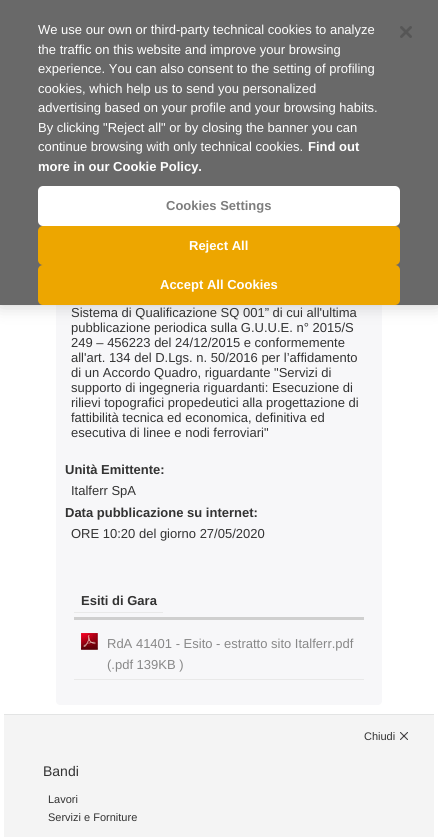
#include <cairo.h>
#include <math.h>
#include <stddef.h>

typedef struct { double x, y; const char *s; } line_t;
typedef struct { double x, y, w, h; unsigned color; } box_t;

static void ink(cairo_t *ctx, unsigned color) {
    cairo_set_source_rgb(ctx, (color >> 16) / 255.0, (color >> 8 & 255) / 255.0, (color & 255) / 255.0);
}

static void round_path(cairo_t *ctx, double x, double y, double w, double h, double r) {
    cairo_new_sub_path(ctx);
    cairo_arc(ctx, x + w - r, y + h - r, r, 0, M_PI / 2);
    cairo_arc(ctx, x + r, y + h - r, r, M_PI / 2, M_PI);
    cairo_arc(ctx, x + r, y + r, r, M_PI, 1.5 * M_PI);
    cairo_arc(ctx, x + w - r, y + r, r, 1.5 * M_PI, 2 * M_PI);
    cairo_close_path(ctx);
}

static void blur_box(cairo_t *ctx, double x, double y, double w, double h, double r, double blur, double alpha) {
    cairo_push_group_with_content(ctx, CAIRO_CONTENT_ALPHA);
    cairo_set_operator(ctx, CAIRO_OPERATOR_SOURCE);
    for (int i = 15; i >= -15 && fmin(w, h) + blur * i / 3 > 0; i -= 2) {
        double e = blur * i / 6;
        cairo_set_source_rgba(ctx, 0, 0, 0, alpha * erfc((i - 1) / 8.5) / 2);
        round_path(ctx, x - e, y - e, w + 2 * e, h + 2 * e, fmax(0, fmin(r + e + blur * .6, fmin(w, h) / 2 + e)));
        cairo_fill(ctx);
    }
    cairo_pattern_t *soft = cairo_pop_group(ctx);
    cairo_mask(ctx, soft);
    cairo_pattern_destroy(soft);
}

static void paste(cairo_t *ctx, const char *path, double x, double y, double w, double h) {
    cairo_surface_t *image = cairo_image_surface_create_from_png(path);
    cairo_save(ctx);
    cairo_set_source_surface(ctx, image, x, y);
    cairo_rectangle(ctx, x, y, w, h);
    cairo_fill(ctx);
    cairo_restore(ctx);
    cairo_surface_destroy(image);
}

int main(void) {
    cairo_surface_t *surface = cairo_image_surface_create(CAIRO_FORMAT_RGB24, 438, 837);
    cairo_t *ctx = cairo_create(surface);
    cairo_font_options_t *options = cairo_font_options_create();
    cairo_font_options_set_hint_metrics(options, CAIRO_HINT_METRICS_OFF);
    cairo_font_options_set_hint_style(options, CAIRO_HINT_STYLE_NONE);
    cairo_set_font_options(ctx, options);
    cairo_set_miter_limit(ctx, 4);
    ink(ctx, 0xFFFFFF);
    cairo_paint(ctx);
    ink(ctx, 0xF7F7F9);
    round_path(ctx, 56, 245, 326, 460, 4);
    cairo_fill(ctx);
    ink(ctx, 0x000000);
    blur_box(ctx, 0, 0, 438, 305, 0, 9, 0.2);
    ink(ctx, 0x696969);
    cairo_rectangle(ctx, 0, 0, 438, 305);
    cairo_fill(ctx);
    cairo_select_font_face(ctx, "Liberation Sans", CAIRO_FONT_SLANT_NORMAL, CAIRO_FONT_WEIGHT_NORMAL);
    cairo_set_font_size(ctx, 13);
    ink(ctx, 0xFFFFFF);
    {
        static const line_t items[] = {
            {38, 34, "We use our own or third-party technical cookies to analyze"},
            {38, 54, "the traffic on this website and improve your browsing"},
            {38, 73, "experience. You can also consent to the setting of profiling"},
            {38, 93, "cookies, which help us to send you personalized"},
            {38, 112, "advertising based on your profile and your browsing habits."},
            {38, 132, "By clicking \"Reject all\" or by closing the banner you can"},
            {38, 151, "continue browsing with only technical cookies."},
        };
        for (size_t i = 0; i < sizeof items / sizeof *items; i++) {
            cairo_move_to(ctx, items[i].x, items[i].y);
            cairo_show_text(ctx, items[i].s);
        }
    }
    cairo_select_font_face(ctx, "Liberation Sans", CAIRO_FONT_SLANT_NORMAL, CAIRO_FONT_WEIGHT_BOLD);
    cairo_move_to(ctx, 308, 151);
    cairo_show_text(ctx, "Find out");
    cairo_move_to(ctx, 38, 171);
    cairo_show_text(ctx, "more in our Cookie Policy.");
    round_path(ctx, 38, 186, 362, 40, 5);
    cairo_fill(ctx);
    ink(ctx, 0x7D7D7D);
    cairo_move_to(ctx, 166, 210);
    cairo_show_text(ctx, "Cookies Settings");
    ink(ctx, 0xEDA600);
    round_path(ctx, 38, 226, 362, 39, 5);
    cairo_fill(ctx);
    ink(ctx, 0xFFFFFF);
    cairo_move_to(ctx, 189, 250);
    cairo_show_text(ctx, "Reject All");
    ink(ctx, 0xEDA600);
    round_path(ctx, 38, 265, 362, 40, 5);
    cairo_fill(ctx);
    ink(ctx, 0xFFFFFF);
    cairo_move_to(ctx, 160, 289);
    cairo_show_text(ctx, "Accept All Cookies");
    paste(ctx, "media/1.png", 400, 26, 12, 12);
    ink(ctx, 0xE3E4E4);
    cairo_rectangle(ctx, 4, 714, 430, 1);
    cairo_fill(ctx);
    cairo_select_font_face(ctx, "Liberation Sans", CAIRO_FONT_SLANT_NORMAL, CAIRO_FONT_WEIGHT_NORMAL);
    ink(ctx, 0x333333);
    {
        static const line_t items[] = {
            {71, 317, "Sistema di Qualificazione SQ 001” di cui all'ultima"},
            {71, 332, "pubblicazione periodica sulla G.U.U.E. n° 2015/S"},
            {71, 347, "249 – 456223 del 24/12/2015 e conformemente"},
            {71, 362, "all'art. 134 del D.Lgs. n. 50/2016 per l’affidamento"},
            {71, 377, "di un Accordo Quadro, riguardante \"Servizi di"},
            {71, 392, "supporto di ingegneria riguardanti: Esecuzione di"},
            {71, 407, "rilievi topografici propedeutici alla progettazione di"},
            {71, 422, "fattibilità tecnica ed economica, definitiva ed"},
            {71, 437, "esecutiva di linee e nodi ferroviari\""},
        };
        for (size_t i = 0; i < sizeof items / sizeof *items; i++) {
            cairo_move_to(ctx, items[i].x, items[i].y);
            cairo_show_text(ctx, items[i].s);
        }
    }
    cairo_select_font_face(ctx, "Liberation Sans", CAIRO_FONT_SLANT_NORMAL, CAIRO_FONT_WEIGHT_BOLD);
    cairo_move_to(ctx, 65, 474);
    cairo_show_text(ctx, "Unità Emittente:");
    cairo_select_font_face(ctx, "Liberation Sans", CAIRO_FONT_SLANT_NORMAL, CAIRO_FONT_WEIGHT_NORMAL);
    cairo_move_to(ctx, 71, 495);
    cairo_show_text(ctx, "Italferr SpA");
    cairo_select_font_face(ctx, "Liberation Sans", CAIRO_FONT_SLANT_NORMAL, CAIRO_FONT_WEIGHT_BOLD);
    cairo_move_to(ctx, 65, 517);
    cairo_show_text(ctx, "Data pubblicazione su internet:");
    cairo_select_font_face(ctx, "Liberation Sans", CAIRO_FONT_SLANT_NORMAL, CAIRO_FONT_WEIGHT_NORMAL);
    cairo_move_to(ctx, 71, 538);
    cairo_show_text(ctx, "ORE 10:20 del giorno 27/05/2020");
    cairo_select_font_face(ctx, "Liberation Sans", CAIRO_FONT_SLANT_NORMAL, CAIRO_FONT_WEIGHT_BOLD);
    cairo_move_to(ctx, 81, 605);
    cairo_show_text(ctx, "Esiti di Gara");
    {
        static const box_t items[] = {
            {74, 612, 89, 1, 0xE9E9E9},
            {74, 617, 290, 3, 0xCFCFCF},
            {74, 679, 290, 1, 0xE9E9E9},
        };
        for (size_t i = 0; i < sizeof items / sizeof *items; i++) {
            ink(ctx, items[i].color);
            cairo_rectangle(ctx, items[i].x, items[i].y, items[i].w, items[i].h);
            cairo_fill(ctx);
        }
    }
    paste(ctx, "media/2.png", 81, 633, 17, 17);
    cairo_select_font_face(ctx, "Liberation Sans", CAIRO_FONT_SLANT_NORMAL, CAIRO_FONT_WEIGHT_NORMAL);
    ink(ctx, 0x888888);
    cairo_move_to(ctx, 107, 648);
    cairo_show_text(ctx, "RdA 41401 - Esito - estratto sito Italferr.pdf");
    cairo_move_to(ctx, 107, 669);
    cairo_show_text(ctx, "(.pdf 139KB )");
    ink(ctx, 0xF4F4F4);
    cairo_rectangle(ctx, 4, 715, 430, 122);
    cairo_fill(ctx);
    cairo_set_font_size(ctx, 11);
    ink(ctx, 0x333333);
    cairo_move_to(ctx, 364, 740);
    cairo_show_text(ctx, "Chiudi");
    paste(ctx, "media/3.png", 400, 732, 8, 8);
    cairo_set_font_size(ctx, 14);
    cairo_move_to(ctx, 43, 776);
    cairo_show_text(ctx, "Bandi");
    cairo_set_font_size(ctx, 11);
    cairo_move_to(ctx, 48, 803);
    cairo_show_text(ctx, "Lavori");
    cairo_move_to(ctx, 48, 821);
    cairo_show_text(ctx, "Servizi e Forniture");
    cairo_surface_write_to_png(surface, "image.png");
    cairo_font_options_destroy(options);
    cairo_destroy(ctx);
    cairo_surface_destroy(surface);
    return 0;
}
